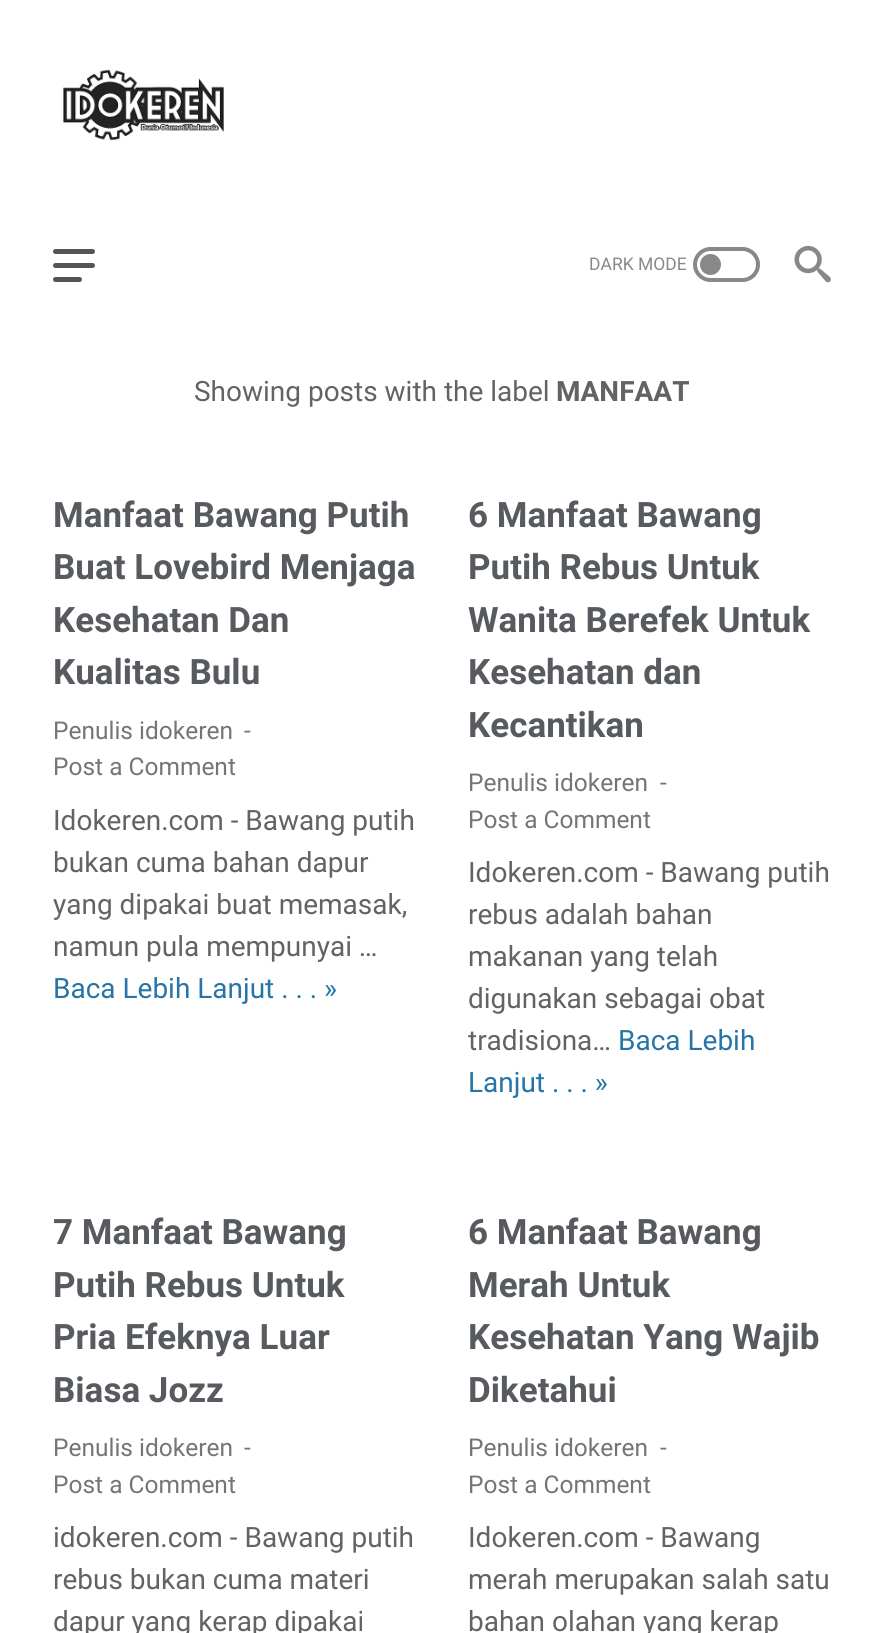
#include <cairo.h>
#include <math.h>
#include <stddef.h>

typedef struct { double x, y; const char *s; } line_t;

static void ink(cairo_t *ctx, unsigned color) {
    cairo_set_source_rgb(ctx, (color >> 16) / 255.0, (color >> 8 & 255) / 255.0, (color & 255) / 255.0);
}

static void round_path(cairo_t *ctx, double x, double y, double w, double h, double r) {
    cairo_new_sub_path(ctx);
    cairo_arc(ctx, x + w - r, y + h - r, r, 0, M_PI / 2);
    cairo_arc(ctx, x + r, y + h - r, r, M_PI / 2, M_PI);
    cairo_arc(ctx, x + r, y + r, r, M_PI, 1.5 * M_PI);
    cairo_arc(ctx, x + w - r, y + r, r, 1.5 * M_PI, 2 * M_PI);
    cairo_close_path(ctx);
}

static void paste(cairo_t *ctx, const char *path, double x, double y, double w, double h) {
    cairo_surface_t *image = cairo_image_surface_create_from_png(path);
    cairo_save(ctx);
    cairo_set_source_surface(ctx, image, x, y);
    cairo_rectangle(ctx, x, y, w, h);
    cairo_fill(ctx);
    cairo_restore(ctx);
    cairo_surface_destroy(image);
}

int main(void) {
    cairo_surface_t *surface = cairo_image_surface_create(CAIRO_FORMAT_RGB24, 883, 1633);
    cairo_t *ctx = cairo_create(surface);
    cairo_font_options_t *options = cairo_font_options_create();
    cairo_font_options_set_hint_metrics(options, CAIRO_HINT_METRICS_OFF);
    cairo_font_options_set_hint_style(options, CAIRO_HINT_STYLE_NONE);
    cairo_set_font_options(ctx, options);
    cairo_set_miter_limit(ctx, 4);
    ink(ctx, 0xFFFFFF);
    cairo_paint(ctx);
    paste(ctx, "media/1.png", 63, 69, 161, 72);
    ink(ctx, 0x555555);
    round_path(ctx, 53, 249, 42, 5, 2.5);
    cairo_fill(ctx);
    round_path(ctx, 53, 263, 42, 5, 2.5);
    cairo_fill(ctx);
    round_path(ctx, 53, 277, 29, 5, 2.5);
    cairo_fill(ctx);
    cairo_select_font_face(ctx, "Roboto", CAIRO_FONT_SLANT_NORMAL, CAIRO_FONT_WEIGHT_NORMAL);
    cairo_set_font_size(ctx, 17.5);
    ink(ctx, 0x888888);
    cairo_move_to(ctx, 589, 270);
    cairo_show_text(ctx, "DARK MODE");
    round_path(ctx, 695, 249, 63, 31, 15.5);
    cairo_set_line_width(ctx, 4);
    cairo_stroke(ctx);
    cairo_arc(ctx, 710.5, 264.5, 10.5, 0, 2 * M_PI);
    cairo_fill(ctx);
    paste(ctx, "media/2.png", 794, 245, 37, 38);
    cairo_set_font_size(ctx, 28);
    ink(ctx, 0x636363);
    cairo_move_to(ctx, 194, 401);
    cairo_show_text(ctx, "Showing posts with the label");
    cairo_select_font_face(ctx, "Roboto", CAIRO_FONT_SLANT_NORMAL, CAIRO_FONT_WEIGHT_BOLD);
    cairo_move_to(ctx, 556, 401);
    cairo_show_text(ctx, "MANFAAT");
    cairo_set_font_size(ctx, 35);
    ink(ctx, 0x575A5F);
    {
        static const line_t items[] = {
            {53, 527, "Manfaat Bawang Putih"},
            {53, 579, "Buat Lovebird Menjaga"},
            {53, 632, "Kesehatan Dan"},
            {53, 684, "Kualitas Bulu"},
        };
        for (size_t i = 0; i < sizeof items / sizeof *items; i++) {
            cairo_move_to(ctx, items[i].x, items[i].y);
            cairo_show_text(ctx, items[i].s);
        }
    }
    cairo_select_font_face(ctx, "Roboto", CAIRO_FONT_SLANT_NORMAL, CAIRO_FONT_WEIGHT_NORMAL);
    cairo_set_font_size(ctx, 24.5);
    ink(ctx, 0x757575);
    {
        static const line_t items[] = {
            {53, 739, "Penulis idokeren"},
            {244, 739, "-"},
            {53, 775, "Post a Comment"},
        };
        for (size_t i = 0; i < sizeof items / sizeof *items; i++) {
            cairo_move_to(ctx, items[i].x, items[i].y);
            cairo_show_text(ctx, items[i].s);
        }
    }
    cairo_set_font_size(ctx, 28);
    ink(ctx, 0x636363);
    {
        static const line_t items[] = {
            {53, 830, "Idokeren.com - Bawang putih"},
            {53, 872, "bukan cuma bahan dapur"},
            {53, 914, "yang dipakai buat memasak,"},
            {53, 956, "namun pula mempunyai …"},
        };
        for (size_t i = 0; i < sizeof items / sizeof *items; i++) {
            cairo_move_to(ctx, items[i].x, items[i].y);
            cairo_show_text(ctx, items[i].s);
        }
    }
    ink(ctx, 0x2675A6);
    cairo_move_to(ctx, 53, 998);
    cairo_show_text(ctx, "Baca Lebih Lanjut . . . »");
    cairo_select_font_face(ctx, "Roboto", CAIRO_FONT_SLANT_NORMAL, CAIRO_FONT_WEIGHT_BOLD);
    cairo_set_font_size(ctx, 35);
    ink(ctx, 0x575A5F);
    {
        static const line_t items[] = {
            {468, 527, "6 Manfaat Bawang"},
            {468, 579, "Putih Rebus Untuk"},
            {468, 632, "Wanita Berefek Untuk"},
            {468, 684, "Kesehatan dan"},
            {468, 737, "Kecantikan"},
        };
        for (size_t i = 0; i < sizeof items / sizeof *items; i++) {
            cairo_move_to(ctx, items[i].x, items[i].y);
            cairo_show_text(ctx, items[i].s);
        }
    }
    cairo_select_font_face(ctx, "Roboto", CAIRO_FONT_SLANT_NORMAL, CAIRO_FONT_WEIGHT_NORMAL);
    cairo_set_font_size(ctx, 24.5);
    ink(ctx, 0x757575);
    {
        static const line_t items[] = {
            {468, 791, "Penulis idokeren"},
            {660, 791, "-"},
            {468, 828, "Post a Comment"},
        };
        for (size_t i = 0; i < sizeof items / sizeof *items; i++) {
            cairo_move_to(ctx, items[i].x, items[i].y);
            cairo_show_text(ctx, items[i].s);
        }
    }
    cairo_set_font_size(ctx, 28);
    ink(ctx, 0x636363);
    {
        static const line_t items[] = {
            {468, 882, "Idokeren.com - Bawang putih"},
            {468, 924, "rebus adalah bahan"},
            {468, 966, "makanan yang telah"},
            {468, 1008, "digunakan sebagai obat"},
            {468, 1050, "tradisiona…"},
        };
        for (size_t i = 0; i < sizeof items / sizeof *items; i++) {
            cairo_move_to(ctx, items[i].x, items[i].y);
            cairo_show_text(ctx, items[i].s);
        }
    }
    ink(ctx, 0x2675A6);
    cairo_move_to(ctx, 618, 1050);
    cairo_show_text(ctx, "Baca Lebih");
    cairo_move_to(ctx, 468, 1092);
    cairo_show_text(ctx, "Lanjut . . . »");
    cairo_select_font_face(ctx, "Roboto", CAIRO_FONT_SLANT_NORMAL, CAIRO_FONT_WEIGHT_BOLD);
    cairo_set_font_size(ctx, 35);
    ink(ctx, 0x575A5F);
    {
        static const line_t items[] = {
            {53, 1244, "7 Manfaat Bawang"},
            {53, 1297, "Putih Rebus Untuk"},
            {53, 1349, "Pria Efeknya Luar"},
            {53, 1402, "Biasa Jozz"},
        };
        for (size_t i = 0; i < sizeof items / sizeof *items; i++) {
            cairo_move_to(ctx, items[i].x, items[i].y);
            cairo_show_text(ctx, items[i].s);
        }
    }
    cairo_select_font_face(ctx, "Roboto", CAIRO_FONT_SLANT_NORMAL, CAIRO_FONT_WEIGHT_NORMAL);
    cairo_set_font_size(ctx, 24.5);
    ink(ctx, 0x757575);
    {
        static const line_t items[] = {
            {53, 1456, "Penulis idokeren"},
            {244, 1456, "-"},
            {53, 1493, "Post a Comment"},
        };
        for (size_t i = 0; i < sizeof items / sizeof *items; i++) {
            cairo_move_to(ctx, items[i].x, items[i].y);
            cairo_show_text(ctx, items[i].s);
        }
    }
    cairo_set_font_size(ctx, 28);
    ink(ctx, 0x636363);
    {
        static const line_t items[] = {
            {53, 1547, "idokeren.com - Bawang putih"},
            {53, 1589, "rebus bukan cuma materi"},
            {53, 1631, "dapur yang kerap dipakai"},
        };
        for (size_t i = 0; i < sizeof items / sizeof *items; i++) {
            cairo_move_to(ctx, items[i].x, items[i].y);
            cairo_show_text(ctx, items[i].s);
        }
    }
    cairo_select_font_face(ctx, "Roboto", CAIRO_FONT_SLANT_NORMAL, CAIRO_FONT_WEIGHT_BOLD);
    cairo_set_font_size(ctx, 35);
    ink(ctx, 0x575A5F);
    {
        static const line_t items[] = {
            {468, 1244, "6 Manfaat Bawang"},
            {468, 1297, "Merah Untuk"},
            {468, 1349, "Kesehatan Yang Wajib"},
            {468, 1402, "Diketahui"},
        };
        for (size_t i = 0; i < sizeof items / sizeof *items; i++) {
            cairo_move_to(ctx, items[i].x, items[i].y);
            cairo_show_text(ctx, items[i].s);
        }
    }
    cairo_select_font_face(ctx, "Roboto", CAIRO_FONT_SLANT_NORMAL, CAIRO_FONT_WEIGHT_NORMAL);
    cairo_set_font_size(ctx, 24.5);
    ink(ctx, 0x757575);
    {
        static const line_t items[] = {
            {468, 1456, "Penulis idokeren"},
            {660, 1456, "-"},
            {468, 1493, "Post a Comment"},
        };
        for (size_t i = 0; i < sizeof items / sizeof *items; i++) {
            cairo_move_to(ctx, items[i].x, items[i].y);
            cairo_show_text(ctx, items[i].s);
        }
    }
    cairo_set_font_size(ctx, 28);
    ink(ctx, 0x636363);
    {
        static const line_t items[] = {
            {468, 1547, "Idokeren.com - Bawang"},
            {468, 1589, "merah merupakan salah satu"},
            {468, 1631, "bahan olahan yang kerap"},
        };
        for (size_t i = 0; i < sizeof items / sizeof *items; i++) {
            cairo_move_to(ctx, items[i].x, items[i].y);
            cairo_show_text(ctx, items[i].s);
        }
    }
    cairo_surface_write_to_png(surface, "image.png");
    cairo_font_options_destroy(options);
    cairo_destroy(ctx);
    cairo_surface_destroy(surface);
    return 0;
}
